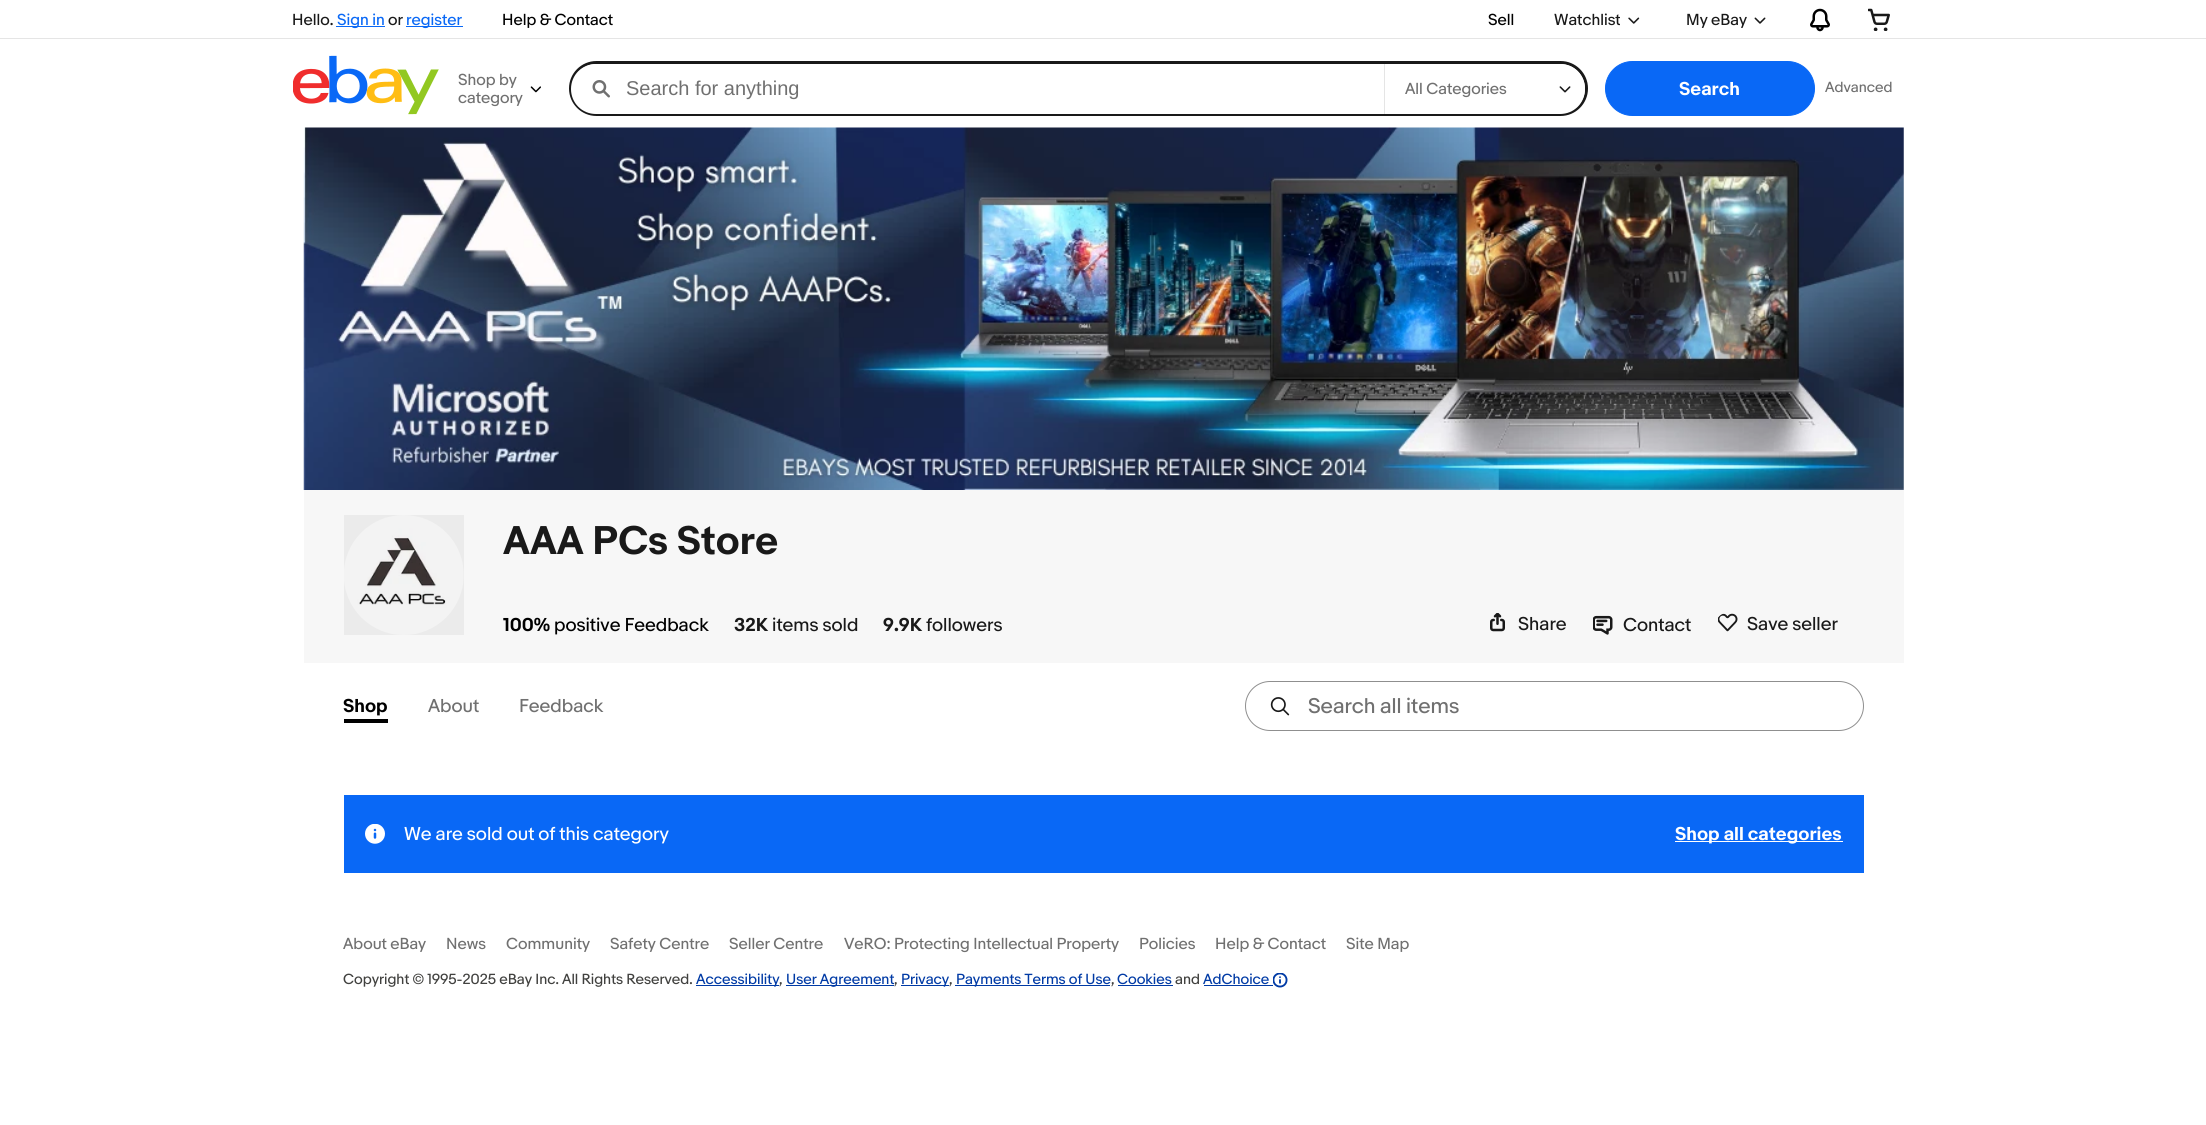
#include <cairo.h>
#include <math.h>
#include <stddef.h>

typedef struct { double x, y; const char *s; } line_t;

static void ink(cairo_t *ctx, unsigned color) {
    cairo_set_source_rgb(ctx, (color >> 16) / 255.0, (color >> 8 & 255) / 255.0, (color & 255) / 255.0);
}

static void round_path(cairo_t *ctx, double x, double y, double w, double h, double r) {
    cairo_new_sub_path(ctx);
    cairo_arc(ctx, x + w - r, y + h - r, r, 0, M_PI / 2);
    cairo_arc(ctx, x + r, y + h - r, r, M_PI / 2, M_PI);
    cairo_arc(ctx, x + r, y + r, r, M_PI, 1.5 * M_PI);
    cairo_arc(ctx, x + w - r, y + r, r, 1.5 * M_PI, 2 * M_PI);
    cairo_close_path(ctx);
}

static void paste(cairo_t *ctx, const char *path, double x, double y, double w, double h) {
    cairo_surface_t *image = cairo_image_surface_create_from_png(path);
    cairo_save(ctx);
    cairo_set_source_surface(ctx, image, x, y);
    cairo_rectangle(ctx, x, y, w, h);
    cairo_fill(ctx);
    cairo_restore(ctx);
    cairo_surface_destroy(image);
}

int main(void) {
    cairo_surface_t *surface = cairo_image_surface_create(CAIRO_FORMAT_RGB24, 2206, 1125);
    cairo_t *ctx = cairo_create(surface);
    cairo_font_options_t *options = cairo_font_options_create();
    cairo_font_options_set_hint_metrics(options, CAIRO_HINT_METRICS_OFF);
    cairo_font_options_set_hint_style(options, CAIRO_HINT_STYLE_NONE);
    cairo_set_font_options(ctx, options);
    cairo_set_miter_limit(ctx, 4);
    ink(ctx, 0xFFFFFF);
    cairo_paint(ctx);
    cairo_select_font_face(ctx, "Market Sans", CAIRO_FONT_SLANT_NORMAL, CAIRO_FONT_WEIGHT_NORMAL);
    cairo_set_font_size(ctx, 15);
    ink(ctx, 0x191919);
    cairo_move_to(ctx, 292, 25);
    cairo_show_text(ctx, "Hello.");
    ink(ctx, 0x0968F6);
    cairo_rectangle(ctx, 336, 26, 49, 1);
    cairo_fill(ctx);
    cairo_move_to(ctx, 337, 25);
    cairo_show_text(ctx, "Sign in");
    ink(ctx, 0x191919);
    cairo_move_to(ctx, 388, 25);
    cairo_show_text(ctx, "or");
    ink(ctx, 0x0968F6);
    cairo_rectangle(ctx, 406, 26, 57, 1);
    cairo_fill(ctx);
    cairo_move_to(ctx, 406, 25);
    cairo_show_text(ctx, "register");
    ink(ctx, 0x000000);
    cairo_move_to(ctx, 502, 25);
    cairo_show_text(ctx, "Help & Contact");
    cairo_move_to(ctx, 1488, 25);
    cairo_show_text(ctx, "Sell");
    ink(ctx, 0x191919);
    cairo_move_to(ctx, 1554, 25);
    cairo_show_text(ctx, "Watchlist");
    paste(ctx, "media/1.png", 1628, 17, 12, 7);
    cairo_move_to(ctx, 1686, 25);
    cairo_show_text(ctx, "My eBay");
    paste(ctx, "media/2.png", 1754, 17, 12, 7);
    paste(ctx, "media/3.png", 1810, 8, 20, 24);
    paste(ctx, "media/4.png", 1868, 8, 22, 23);
    paste(ctx, "media/5.png", 293, 55, 146, 60);
    ink(ctx, 0x707070);
    cairo_move_to(ctx, 458, 85);
    cairo_show_text(ctx, "Shop by");
    cairo_move_to(ctx, 458, 103);
    cairo_show_text(ctx, "category");
    paste(ctx, "media/6.png", 530, 86, 11, 7);
    round_path(ctx, 570.5, 62.5, 1016, 52, 26);
    ink(ctx, 0x191919);
    cairo_set_line_width(ctx, 3);
    cairo_stroke(ctx);
    ink(ctx, 0xE5E5E5);
    cairo_rectangle(ctx, 1384, 64, 1, 50);
    cairo_fill(ctx);
    ink(ctx, 0xFFFFFF);
    cairo_new_path(ctx);
    cairo_move_to(ctx, 596, 64);
    cairo_line_to(ctx, 1384, 64);
    cairo_line_to(ctx, 1384, 114);
    cairo_line_to(ctx, 596, 114);
    cairo_curve_to(ctx, 582, 114, 571, 103, 571, 89);
    cairo_curve_to(ctx, 571, 75, 582, 64, 596, 64);
    cairo_close_path(ctx);
    cairo_fill(ctx);
    paste(ctx, "media/7.png", 592, 80, 18, 18);
    cairo_select_font_face(ctx, "Liberation Sans", CAIRO_FONT_SLANT_NORMAL, CAIRO_FONT_WEIGHT_NORMAL);
    cairo_set_font_size(ctx, 20);
    ink(ctx, 0x707070);
    cairo_move_to(ctx, 626, 95);
    cairo_show_text(ctx, "Search for anything");
    ink(ctx, 0xFFFFFF);
    cairo_new_path(ctx);
    cairo_move_to(ctx, 1385, 64);
    cairo_line_to(ctx, 1560, 64);
    cairo_curve_to(ctx, 1574, 64, 1585, 75, 1585, 89);
    cairo_curve_to(ctx, 1585, 103, 1574, 114, 1560, 114);
    cairo_line_to(ctx, 1385, 114);
    cairo_close_path(ctx);
    cairo_fill(ctx);
    paste(ctx, "media/8.png", 1559, 86, 12, 7);
    cairo_select_font_face(ctx, "Market Sans", CAIRO_FONT_SLANT_NORMAL, CAIRO_FONT_WEIGHT_NORMAL);
    cairo_set_font_size(ctx, 15);
    ink(ctx, 0x707070);
    cairo_move_to(ctx, 1405, 94);
    cairo_show_text(ctx, "All Categories");
    ink(ctx, 0x0968F6);
    round_path(ctx, 1605.5, 61.5, 209, 54, 27);
    cairo_fill_preserve(ctx);
    cairo_set_line_width(ctx, 1);
    cairo_stroke(ctx);
    cairo_select_font_face(ctx, "Market Sans", CAIRO_FONT_SLANT_NORMAL, CAIRO_FONT_WEIGHT_BOLD);
    cairo_set_font_size(ctx, 17.5);
    ink(ctx, 0xFFFFFF);
    cairo_move_to(ctx, 1679, 95);
    cairo_show_text(ctx, "Search");
    cairo_select_font_face(ctx, "Market Sans", CAIRO_FONT_SLANT_NORMAL, CAIRO_FONT_WEIGHT_NORMAL);
    cairo_set_font_size(ctx, 13.75);
    ink(ctx, 0x707070);
    cairo_move_to(ctx, 1825, 92);
    cairo_show_text(ctx, "Advanced");
    ink(ctx, 0xE5E5E5);
    cairo_rectangle(ctx, 0, 38, 2206, 1);
    cairo_fill(ctx);
    paste(ctx, "media/9.png", 303, 127, 1601, 363);
    ink(ctx, 0xF7F7F7);
    cairo_rectangle(ctx, 304, 490, 1600, 173);
    cairo_fill(ctx);
    paste(ctx, "media/10.png", 344, 515, 120, 120);
    cairo_set_source_rgba(ctx, 0, 0, 0, 0.05);
    cairo_rectangle(ctx, 344, 515, 120, 120);
    cairo_fill(ctx);
    cairo_select_font_face(ctx, "Market Sans", CAIRO_FONT_SLANT_NORMAL, CAIRO_FONT_WEIGHT_BOLD);
    cairo_set_font_size(ctx, 37.5);
    ink(ctx, 0x191919);
    cairo_move_to(ctx, 503, 554);
    cairo_show_text(ctx, "AAA PCs Store");
    cairo_set_font_size(ctx, 17.5);
    ink(ctx, 0x000000);
    cairo_move_to(ctx, 503, 631);
    cairo_show_text(ctx, "100%");
    cairo_select_font_face(ctx, "Market Sans", CAIRO_FONT_SLANT_NORMAL, CAIRO_FONT_WEIGHT_NORMAL);
    cairo_move_to(ctx, 554, 631);
    cairo_show_text(ctx, "positive Feedback");
    cairo_select_font_face(ctx, "Market Sans", CAIRO_FONT_SLANT_NORMAL, CAIRO_FONT_WEIGHT_BOLD);
    ink(ctx, 0x191919);
    cairo_move_to(ctx, 734, 631);
    cairo_show_text(ctx, "32K");
    cairo_select_font_face(ctx, "Market Sans", CAIRO_FONT_SLANT_NORMAL, CAIRO_FONT_WEIGHT_NORMAL);
    cairo_move_to(ctx, 772, 631);
    cairo_show_text(ctx, "items sold");
    cairo_select_font_face(ctx, "Market Sans", CAIRO_FONT_SLANT_NORMAL, CAIRO_FONT_WEIGHT_BOLD);
    cairo_move_to(ctx, 883, 631);
    cairo_show_text(ctx, "9.9K");
    cairo_select_font_face(ctx, "Market Sans", CAIRO_FONT_SLANT_NORMAL, CAIRO_FONT_WEIGHT_NORMAL);
    cairo_move_to(ctx, 926, 631);
    cairo_show_text(ctx, "followers");
    paste(ctx, "media/11.png", 1490, 613, 15, 19);
    cairo_move_to(ctx, 1518, 630);
    cairo_show_text(ctx, "Share");
    paste(ctx, "media/12.png", 1593, 615, 20, 20);
    cairo_move_to(ctx, 1623, 631);
    cairo_show_text(ctx, "Contact");
    paste(ctx, "media/13.png", 1718, 613, 20, 19);
    cairo_move_to(ctx, 1747, 630);
    cairo_show_text(ctx, "Save seller");
    ink(ctx, 0x000000);
    cairo_rectangle(ctx, 344, 719, 44, 4);
    cairo_fill(ctx);
    cairo_select_font_face(ctx, "Market Sans", CAIRO_FONT_SLANT_NORMAL, CAIRO_FONT_WEIGHT_BOLD);
    cairo_move_to(ctx, 343, 712);
    cairo_show_text(ctx, "Shop");
    cairo_select_font_face(ctx, "Market Sans", CAIRO_FONT_SLANT_NORMAL, CAIRO_FONT_WEIGHT_NORMAL);
    ink(ctx, 0x707070);
    cairo_move_to(ctx, 428, 712);
    cairo_show_text(ctx, "About");
    cairo_move_to(ctx, 519, 712);
    cairo_show_text(ctx, "Feedback");
    round_path(ctx, 1245.5, 681.5, 618, 49, 24.5);
    ink(ctx, 0x8F8F8F);
    cairo_stroke(ctx);
    paste(ctx, "media/14.png", 1270, 697, 20, 19);
    cairo_set_font_size(ctx, 20);
    ink(ctx, 0x707070);
    cairo_move_to(ctx, 1308, 713);
    cairo_show_text(ctx, "Search all items");
    ink(ctx, 0x0968F6);
    cairo_rectangle(ctx, 344, 795, 1520, 78);
    cairo_fill(ctx);
    paste(ctx, "media/15.png", 365, 824, 20, 20);
    cairo_set_font_size(ctx, 17.5);
    ink(ctx, 0xFFFFFF);
    cairo_move_to(ctx, 404, 840);
    cairo_show_text(ctx, "We are sold out of this category");
    cairo_rectangle(ctx, 1675, 841, 168, 1);
    cairo_fill(ctx);
    cairo_select_font_face(ctx, "Market Sans", CAIRO_FONT_SLANT_NORMAL, CAIRO_FONT_WEIGHT_BOLD);
    cairo_move_to(ctx, 1675, 840);
    cairo_show_text(ctx, "Shop all categories");
    cairo_select_font_face(ctx, "Market Sans", CAIRO_FONT_SLANT_NORMAL, CAIRO_FONT_WEIGHT_NORMAL);
    cairo_set_font_size(ctx, 15);
    ink(ctx, 0x707070);
    {
        static const line_t items[] = {
            {343, 949, "About eBay"},
            {446, 949, "News"},
            {506, 949, "Community"},
            {610, 949, "Safety Centre"},
            {729, 949, "Seller Centre"},
            {844, 949, "VeRO: Protecting Intellectual Property"},
            {1139, 949, "Policies"},
            {1215, 949, "Help & Contact"},
            {1346, 949, "Site Map"},
        };
        for (size_t i = 0; i < sizeof items / sizeof *items; i++) {
            cairo_move_to(ctx, items[i].x, items[i].y);
            cairo_show_text(ctx, items[i].s);
        }
    }
    cairo_set_font_size(ctx, 13.75);
    ink(ctx, 0x41413F);
    cairo_move_to(ctx, 343, 984);
    cairo_show_text(ctx, "Copyright © 1995-2025 eBay Inc. All Rights Reserved.");
    ink(ctx, 0x003AA5);
    cairo_rectangle(ctx, 696, 985, 83, 1);
    cairo_fill(ctx);
    cairo_move_to(ctx, 696, 984);
    cairo_show_text(ctx, "Accessibility");
    ink(ctx, 0x41413F);
    cairo_move_to(ctx, 779, 984);
    cairo_show_text(ctx, ",");
    ink(ctx, 0x003AA5);
    cairo_rectangle(ctx, 786, 985, 108, 1);
    cairo_fill(ctx);
    cairo_move_to(ctx, 786, 984);
    cairo_show_text(ctx, "User Agreement");
    ink(ctx, 0x41413F);
    cairo_move_to(ctx, 894, 984);
    cairo_show_text(ctx, ",");
    ink(ctx, 0x003AA5);
    cairo_rectangle(ctx, 901, 985, 48, 1);
    cairo_fill(ctx);
    cairo_move_to(ctx, 901, 984);
    cairo_show_text(ctx, "Privacy");
    ink(ctx, 0x41413F);
    cairo_move_to(ctx, 949, 984);
    cairo_show_text(ctx, ",");
    ink(ctx, 0x003AA5);
    cairo_rectangle(ctx, 955, 985, 155, 1);
    cairo_fill(ctx);
    cairo_move_to(ctx, 956, 984);
    cairo_show_text(ctx, "Payments Terms of Use");
    ink(ctx, 0x41413F);
    cairo_move_to(ctx, 1111, 984);
    cairo_show_text(ctx, ",");
    ink(ctx, 0x003AA5);
    cairo_move_to(ctx, 1117, 984);
    cairo_show_text(ctx, "Cookies");
    cairo_rectangle(ctx, 1118, 985, 55, 1);
    cairo_fill(ctx);
    ink(ctx, 0x41413F);
    cairo_move_to(ctx, 1175, 984);
    cairo_show_text(ctx, "and");
    ink(ctx, 0x003AA5);
    cairo_move_to(ctx, 1203, 984);
    cairo_show_text(ctx, "AdChoice");
    cairo_rectangle(ctx, 1204, 985, 69, 1);
    cairo_fill(ctx);
    paste(ctx, "media/16.png", 1273, 973, 15, 15);
    cairo_surface_write_to_png(surface, "image.png");
    cairo_font_options_destroy(options);
    cairo_destroy(ctx);
    cairo_surface_destroy(surface);
    return 0;
}
